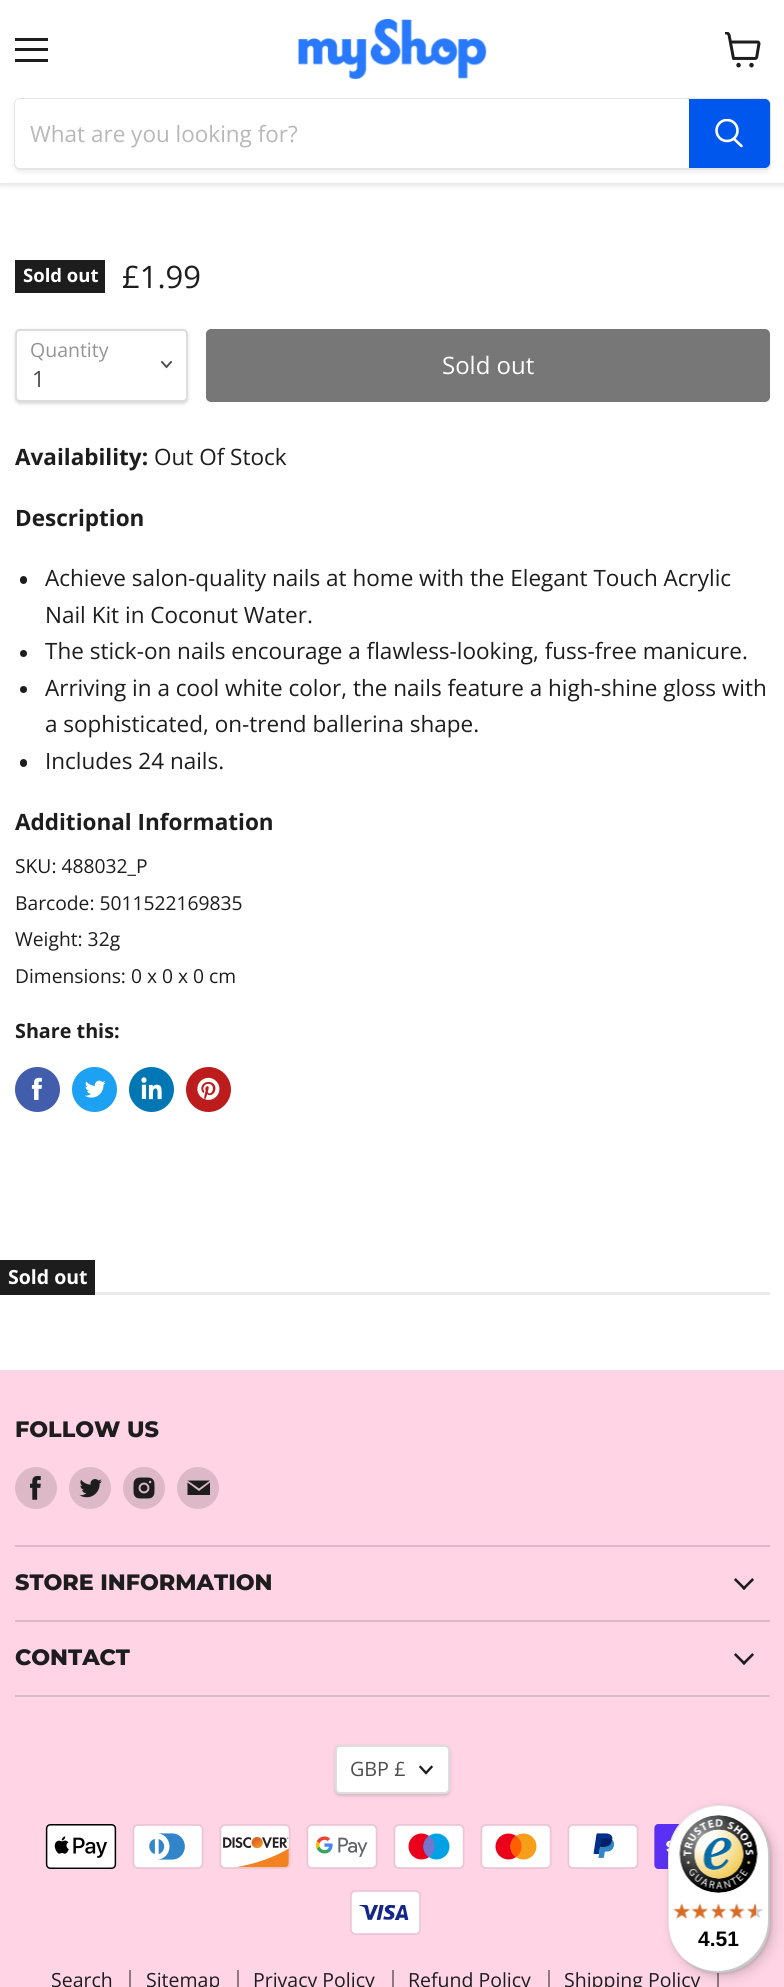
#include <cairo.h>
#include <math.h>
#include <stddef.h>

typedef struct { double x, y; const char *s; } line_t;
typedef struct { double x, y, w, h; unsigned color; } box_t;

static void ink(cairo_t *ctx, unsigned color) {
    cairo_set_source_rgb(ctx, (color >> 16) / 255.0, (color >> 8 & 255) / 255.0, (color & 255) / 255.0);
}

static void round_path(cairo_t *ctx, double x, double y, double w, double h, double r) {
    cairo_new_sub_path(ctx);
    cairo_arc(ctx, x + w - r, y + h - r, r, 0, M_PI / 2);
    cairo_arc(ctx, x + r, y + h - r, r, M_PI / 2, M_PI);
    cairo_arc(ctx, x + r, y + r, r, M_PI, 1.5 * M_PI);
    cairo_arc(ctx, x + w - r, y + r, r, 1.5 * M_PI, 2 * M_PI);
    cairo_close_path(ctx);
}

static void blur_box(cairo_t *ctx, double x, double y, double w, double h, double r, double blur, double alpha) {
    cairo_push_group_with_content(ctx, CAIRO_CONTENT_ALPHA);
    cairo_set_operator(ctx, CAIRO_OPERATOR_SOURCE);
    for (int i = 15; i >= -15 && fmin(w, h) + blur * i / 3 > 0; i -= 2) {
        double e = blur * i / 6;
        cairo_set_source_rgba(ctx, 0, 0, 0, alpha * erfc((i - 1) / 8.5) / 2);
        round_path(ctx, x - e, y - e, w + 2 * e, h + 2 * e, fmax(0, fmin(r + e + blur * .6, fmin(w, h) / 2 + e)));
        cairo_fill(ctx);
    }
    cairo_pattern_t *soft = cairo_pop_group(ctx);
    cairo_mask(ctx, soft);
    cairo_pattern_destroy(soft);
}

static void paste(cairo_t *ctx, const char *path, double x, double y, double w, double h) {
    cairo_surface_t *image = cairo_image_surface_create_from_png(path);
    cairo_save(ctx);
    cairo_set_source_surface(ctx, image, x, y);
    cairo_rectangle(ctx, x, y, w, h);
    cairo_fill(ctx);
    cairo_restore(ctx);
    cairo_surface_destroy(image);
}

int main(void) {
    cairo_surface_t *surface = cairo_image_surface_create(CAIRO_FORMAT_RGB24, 784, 1987);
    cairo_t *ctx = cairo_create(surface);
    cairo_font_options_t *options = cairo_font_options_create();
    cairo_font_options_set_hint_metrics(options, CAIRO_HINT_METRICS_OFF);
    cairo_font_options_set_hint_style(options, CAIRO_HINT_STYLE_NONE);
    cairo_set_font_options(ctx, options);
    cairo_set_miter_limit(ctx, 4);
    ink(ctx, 0xFFFFFF);
    cairo_paint(ctx);
    ink(ctx, 0x808080);
    blur_box(ctx, 0, 2, 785, 183, 0, 3, 0.25);
    {
        static const box_t items[] = {
            {0, 0, 784, 183, 0xFFFFFF},
            {15, 38, 33, 3, 0x1D1D1D},
            {15, 48, 33, 3, 0x1D1D1D},
            {15, 59, 33, 3, 0x1D1D1D},
        };
        for (size_t i = 0; i < sizeof items / sizeof *items; i++) {
            ink(ctx, items[i].color);
            cairo_rectangle(ctx, items[i].x, items[i].y, items[i].w, items[i].h);
            cairo_fill(ctx);
        }
    }
    paste(ctx, "media/1.png", 725, 32, 36, 36);
    paste(ctx, "media/2.png", 298, 19, 189, 60);
    cairo_save(ctx);
    cairo_set_fill_rule(ctx, CAIRO_FILL_RULE_EVEN_ODD);
    cairo_new_path(ctx);
    cairo_move_to(ctx, 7, 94);
    cairo_line_to(ctx, 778, 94);
    cairo_line_to(ctx, 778, 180);
    cairo_line_to(ctx, 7, 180);
    cairo_close_path(ctx);
    cairo_move_to(ctx, 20, 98);
    cairo_line_to(ctx, 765, 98);
    cairo_curve_to(ctx, 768.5, 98, 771, 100.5, 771, 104);
    cairo_line_to(ctx, 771, 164);
    cairo_curve_to(ctx, 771, 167.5, 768.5, 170, 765, 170);
    cairo_line_to(ctx, 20, 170);
    cairo_curve_to(ctx, 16.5, 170, 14, 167.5, 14, 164);
    cairo_line_to(ctx, 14, 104);
    cairo_curve_to(ctx, 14, 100.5, 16.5, 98, 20, 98);
    cairo_close_path(ctx);
    cairo_clip(ctx);
    ink(ctx, 0x808080);
    blur_box(ctx, 14, 101, 757, 72, 6, 2, 0.11);
    cairo_restore(ctx);
    round_path(ctx, 15, 99, 755, 70, 5);
    cairo_set_source_rgba(ctx, 0.502, 0.502, 0.502, 0.2);
    cairo_stroke(ctx);
    ink(ctx, 0xFFFFFF);
    cairo_new_path(ctx);
    cairo_move_to(ctx, 20, 99);
    cairo_line_to(ctx, 689, 99);
    cairo_line_to(ctx, 689, 168);
    cairo_line_to(ctx, 20, 168);
    cairo_curve_to(ctx, 17, 168, 15, 166, 15, 163);
    cairo_line_to(ctx, 15, 104);
    cairo_curve_to(ctx, 15, 101, 17, 99, 20, 99);
    cairo_close_path(ctx);
    cairo_fill(ctx);
    cairo_select_font_face(ctx, "Open Sans", CAIRO_FONT_SLANT_NORMAL, CAIRO_FONT_WEIGHT_NORMAL);
    cairo_set_font_size(ctx, 22.5);
    ink(ctx, 0xB8B8B8);
    cairo_move_to(ctx, 30, 142);
    cairo_show_text(ctx, "What are you looking for?");
    ink(ctx, 0x0057EE);
    cairo_new_path(ctx);
    cairo_move_to(ctx, 690, 100);
    cairo_line_to(ctx, 765, 100);
    cairo_curve_to(ctx, 767, 100, 769, 102, 769, 104);
    cairo_line_to(ctx, 769, 163);
    cairo_curve_to(ctx, 769, 165, 767, 167, 765, 167);
    cairo_line_to(ctx, 690, 167);
    cairo_close_path(ctx);
    cairo_fill_preserve(ctx);
    cairo_stroke(ctx);
    cairo_new_path(ctx);
    cairo_move_to(ctx, 741.5, 146);
    cairo_line_to(ctx, 734, 139);
    ink(ctx, 0xFFFFFF);
    cairo_set_line_width(ctx, 2.6);
    cairo_set_line_cap(ctx, CAIRO_LINE_CAP_ROUND);
    cairo_stroke(ctx);
    cairo_save(ctx);
    cairo_rectangle(ctx, 714, 119, 30, 31);
    cairo_clip(ctx);
    cairo_arc(ctx, 727, 130.5, 10.5, 0, 2 * M_PI);
    cairo_set_line_cap(ctx, CAIRO_LINE_CAP_BUTT);
    cairo_stroke(ctx);
    cairo_restore(ctx);
    ink(ctx, 0x1D1D1D);
    cairo_rectangle(ctx, 15, 260, 90, 33);
    cairo_fill(ctx);
    cairo_select_font_face(ctx, "Open Sans", CAIRO_FONT_SLANT_NORMAL, CAIRO_FONT_WEIGHT_BOLD);
    cairo_set_font_size(ctx, 18.5);
    ink(ctx, 0xFFFFFF);
    cairo_move_to(ctx, 23, 282);
    cairo_show_text(ctx, "Sold out");
    cairo_select_font_face(ctx, "Open Sans", CAIRO_FONT_SLANT_NORMAL, CAIRO_FONT_WEIGHT_NORMAL);
    cairo_set_font_size(ctx, 31);
    ink(ctx, 0x1D1D1D);
    cairo_move_to(ctx, 122, 288);
    cairo_show_text(ctx, "£1.99");
    ink(ctx, 0x000000);
    blur_box(ctx, 15, 330, 173, 74, 5, 1.5, 0.15);
    ink(ctx, 0xFFFFFF);
    round_path(ctx, 16, 330, 171, 71, 4);
    cairo_fill_preserve(ctx);
    ink(ctx, 0xDDDDDD);
    cairo_set_line_width(ctx, 2);
    cairo_set_line_cap(ctx, CAIRO_LINE_CAP_BUTT);
    cairo_stroke(ctx);
    cairo_set_font_size(ctx, 19.5);
    ink(ctx, 0x949494);
    cairo_move_to(ctx, 30, 357);
    cairo_show_text(ctx, "Quantity");
    cairo_new_path(ctx);
    cairo_move_to(ctx, 166.5, 367);
    cairo_line_to(ctx, 171, 362);
    cairo_move_to(ctx, 166.5, 367);
    cairo_line_to(ctx, 162, 362);
    ink(ctx, 0x4D4D4D);
    cairo_set_line_width(ctx, 1.9);
    cairo_set_line_cap(ctx, CAIRO_LINE_CAP_SQUARE);
    cairo_stroke(ctx);
    cairo_set_font_size(ctx, 22.5);
    cairo_move_to(ctx, 32, 387);
    cairo_show_text(ctx, "1");
    ink(ctx, 0x777777);
    round_path(ctx, 207, 330, 562, 71, 4);
    cairo_fill_preserve(ctx);
    cairo_set_line_width(ctx, 2);
    cairo_set_line_cap(ctx, CAIRO_LINE_CAP_BUTT);
    cairo_stroke(ctx);
    cairo_set_font_size(ctx, 24);
    ink(ctx, 0xFFFFFF);
    cairo_move_to(ctx, 442, 374);
    cairo_show_text(ctx, "Sold out");
    cairo_select_font_face(ctx, "Open Sans", CAIRO_FONT_SLANT_NORMAL, CAIRO_FONT_WEIGHT_BOLD);
    cairo_set_font_size(ctx, 22.5);
    ink(ctx, 0x1D1D1D);
    cairo_move_to(ctx, 15, 465);
    cairo_show_text(ctx, "Availability:");
    cairo_select_font_face(ctx, "Open Sans", CAIRO_FONT_SLANT_NORMAL, CAIRO_FONT_WEIGHT_NORMAL);
    cairo_move_to(ctx, 154, 465);
    cairo_show_text(ctx, "Out Of Stock");
    cairo_select_font_face(ctx, "Open Sans", CAIRO_FONT_SLANT_NORMAL, CAIRO_FONT_WEIGHT_BOLD);
    cairo_move_to(ctx, 15, 526);
    cairo_show_text(ctx, "Description");
    round_path(ctx, 20, 576, 7, 8, 3.5);
    cairo_fill(ctx);
    cairo_select_font_face(ctx, "Open Sans", CAIRO_FONT_SLANT_NORMAL, CAIRO_FONT_WEIGHT_NORMAL);
    cairo_move_to(ctx, 45, 586);
    cairo_show_text(ctx, "Achieve salon-quality nails at home with the Elegant Touch Acrylic");
    cairo_move_to(ctx, 45, 623);
    cairo_show_text(ctx, "Nail Kit in Coconut Water.");
    cairo_new_path(ctx);
    cairo_arc(ctx, 23.5, 653.5, 3.5, 0, 2 * M_PI);
    cairo_fill(ctx);
    cairo_move_to(ctx, 45, 659);
    cairo_show_text(ctx, "The stick-on nails encourage a flawless-looking, fuss-free manicure.");
    cairo_new_path(ctx);
    cairo_arc(ctx, 23.5, 689.5, 3.5, 0, 2 * M_PI);
    cairo_fill(ctx);
    cairo_move_to(ctx, 45, 696);
    cairo_show_text(ctx, "Arriving in a cool white color, the nails feature a high-shine gloss with");
    cairo_move_to(ctx, 45, 732);
    cairo_show_text(ctx, "a sophisticated, on-trend ballerina shape.");
    round_path(ctx, 20, 759, 7, 8, 3.5);
    cairo_fill(ctx);
    cairo_move_to(ctx, 45, 769);
    cairo_show_text(ctx, "Includes 24 nails.");
    cairo_select_font_face(ctx, "Open Sans", CAIRO_FONT_SLANT_NORMAL, CAIRO_FONT_WEIGHT_BOLD);
    cairo_move_to(ctx, 15, 830);
    cairo_show_text(ctx, "Additional Information");
    cairo_select_font_face(ctx, "Open Sans", CAIRO_FONT_SLANT_NORMAL, CAIRO_FONT_WEIGHT_NORMAL);
    cairo_set_font_size(ctx, 19.25);
    {
        static const line_t items[] = {
            {15, 873, "SKU: 488032_P"},
            {15, 910, "Barcode: 5011522169835"},
            {15, 946, "Weight: 32g"},
            {15, 983, "Dimensions: 0 x 0 x 0 cm"},
        };
        for (size_t i = 0; i < sizeof items / sizeof *items; i++) {
            cairo_move_to(ctx, items[i].x, items[i].y);
            cairo_show_text(ctx, items[i].s);
        }
    }
    cairo_select_font_face(ctx, "Open Sans", CAIRO_FONT_SLANT_NORMAL, CAIRO_FONT_WEIGHT_BOLD);
    cairo_set_font_size(ctx, 19.75);
    cairo_move_to(ctx, 15, 1038);
    cairo_show_text(ctx, "Share this:");
    ink(ctx, 0x425DAB);
    cairo_new_path(ctx);
    cairo_arc(ctx, 37.5, 1089.5, 22.5, 0, 2 * M_PI);
    cairo_fill(ctx);
    paste(ctx, "media/3.png", 31, 1077, 11, 23);
    ink(ctx, 0x1DA1F2);
    cairo_arc(ctx, 94.5, 1089.5, 22.5, 0, 2 * M_PI);
    cairo_fill(ctx);
    paste(ctx, "media/4.png", 85, 1080, 21, 18);
    ink(ctx, 0x0077B5);
    cairo_arc(ctx, 151.5, 1089.5, 22.5, 0, 2 * M_PI);
    cairo_fill(ctx);
    paste(ctx, "media/5.png", 141, 1077, 21, 23);
    ink(ctx, 0xBD1C1C);
    cairo_arc(ctx, 208.5, 1089.5, 22.5, 0, 2 * M_PI);
    cairo_fill(ctx);
    paste(ctx, "media/6.png", 197, 1077, 23, 23);
    ink(ctx, 0x1D1D1D);
    cairo_rectangle(ctx, 0, 1260, 95, 35);
    cairo_fill(ctx);
    cairo_set_font_size(ctx, 19.5);
    ink(ctx, 0xFFFFFF);
    cairo_move_to(ctx, 8, 1284);
    cairo_show_text(ctx, "Sold out");
    cairo_set_source_rgba(ctx, 0.502, 0.502, 0.502, 0.16);
    cairo_rectangle(ctx, 95, 1292, 675, 3);
    cairo_fill(ctx);
    ink(ctx, 0xFFD5E5);
    cairo_rectangle(ctx, 0, 1370, 784, 617);
    cairo_fill(ctx);
    ink(ctx, 0xDDB9C7);
    cairo_rectangle(ctx, 15, 1545, 755, 2);
    cairo_fill(ctx);
    cairo_select_font_face(ctx, "Montserrat ExtraBold", CAIRO_FONT_SLANT_NORMAL, CAIRO_FONT_WEIGHT_NORMAL);
    cairo_set_font_size(ctx, 22.25);
    ink(ctx, 0x1D1D1D);
    cairo_move_to(ctx, 15, 1437);
    cairo_show_text(ctx, "FOLLOW US");
    ink(ctx, 0xDDB9C7);
    cairo_new_path(ctx);
    cairo_arc(ctx, 36, 1488, 21, 0, 2 * M_PI);
    cairo_fill(ctx);
    paste(ctx, "media/7.png", 30, 1476, 11, 24);
    cairo_arc(ctx, 90, 1488, 21, 0, 2 * M_PI);
    cairo_fill(ctx);
    paste(ctx, "media/8.png", 79, 1479, 23, 19);
    cairo_arc(ctx, 144, 1488, 21, 0, 2 * M_PI);
    cairo_fill(ctx);
    paste(ctx, "media/9.png", 133, 1477, 22, 22);
    cairo_arc(ctx, 198, 1488, 21, 0, 2 * M_PI);
    cairo_fill(ctx);
    ink(ctx, 0x1D1D1D);
    cairo_set_fill_rule(ctx, CAIRO_FILL_RULE_EVEN_ODD);
    cairo_new_path(ctx);
    cairo_move_to(ctx, 210, 1480.5);
    cairo_line_to(ctx, 187.5, 1480.5);
    cairo_line_to(ctx, 199, 1488.5);
    cairo_close_path(ctx);
    cairo_move_to(ctx, 199, 1491);
    cairo_line_to(ctx, 187.5, 1482.5);
    cairo_line_to(ctx, 187.5, 1495);
    cairo_line_to(ctx, 210, 1495);
    cairo_line_to(ctx, 210, 1482.5);
    cairo_close_path(ctx);
    cairo_fill(ctx);
    ink(ctx, 0xDDB9C7);
    cairo_rectangle(ctx, 15, 1620, 755, 2);
    cairo_fill(ctx);
    ink(ctx, 0x1D1D1D);
    cairo_move_to(ctx, 15, 1590);
    cairo_show_text(ctx, "STORE INFORMATION");
    paste(ctx, "media/10.png", 734, 1578, 20, 12);
    ink(ctx, 0xDDB9C7);
    cairo_rectangle(ctx, 15, 1695, 755, 2);
    cairo_fill(ctx);
    ink(ctx, 0x1D1D1D);
    cairo_move_to(ctx, 15, 1665);
    cairo_show_text(ctx, "CONTACT");
    paste(ctx, "media/10.png", 734, 1653, 20, 12);
    ink(ctx, 0x000000);
    blur_box(ctx, 335, 1746, 115, 50, 5, 1.5, 0.15);
    ink(ctx, 0xFFFFFF);
    round_path(ctx, 336, 1746, 113, 47, 4);
    cairo_fill_preserve(ctx);
    ink(ctx, 0xDDDDDD);
    cairo_stroke(ctx);
    cairo_select_font_face(ctx, "Open Sans", CAIRO_FONT_SLANT_NORMAL, CAIRO_FONT_WEIGHT_NORMAL);
    cairo_set_font_size(ctx, 19.75);
    ink(ctx, 0x4D4D4D);
    cairo_move_to(ctx, 350, 1776);
    cairo_show_text(ctx, "GBP £");
    cairo_new_path(ctx);
    cairo_move_to(ctx, 426, 1773);
    cairo_line_to(ctx, 431.5, 1767);
    cairo_move_to(ctx, 426, 1773);
    cairo_line_to(ctx, 420.5, 1767);
    ink(ctx, 0x1D1D1D);
    cairo_set_line_width(ctx, 2.3);
    cairo_set_line_cap(ctx, CAIRO_LINE_CAP_SQUARE);
    cairo_stroke(ctx);
    paste(ctx, "media/11.png", 45, 1824, 72, 45);
    paste(ctx, "media/12.png", 132, 1824, 72, 45);
    paste(ctx, "media/13.png", 219, 1824, 72, 45);
    paste(ctx, "media/14.png", 306, 1824, 72, 45);
    paste(ctx, "media/15.png", 393, 1824, 72, 45);
    paste(ctx, "media/16.png", 480, 1824, 72, 45);
    paste(ctx, "media/17.png", 567, 1824, 72, 45);
    paste(ctx, "media/18.png", 654, 1824, 26, 45);
    paste(ctx, "media/19.png", 350, 1890, 71, 45);
    ink(ctx, 0x8E7981);
    cairo_rectangle(ctx, 129, 1970, 2, 17);
    cairo_fill(ctx);
    cairo_set_font_size(ctx, 19.5);
    ink(ctx, 0x1D1D1D);
    cairo_move_to(ctx, 51, 1987);
    cairo_show_text(ctx, "Search");
    ink(ctx, 0x8E7981);
    cairo_rectangle(ctx, 237, 1970, 2, 17);
    cairo_fill(ctx);
    ink(ctx, 0x1D1D1D);
    cairo_move_to(ctx, 146, 1987);
    cairo_show_text(ctx, "Sitemap");
    ink(ctx, 0x8E7981);
    cairo_rectangle(ctx, 392, 1970, 2, 17);
    cairo_fill(ctx);
    ink(ctx, 0x1D1D1D);
    cairo_move_to(ctx, 253, 1987);
    cairo_show_text(ctx, "Privacy Policy");
    ink(ctx, 0x8E7981);
    cairo_rectangle(ctx, 548, 1970, 2, 17);
    cairo_fill(ctx);
    ink(ctx, 0x1D1D1D);
    cairo_move_to(ctx, 408, 1987);
    cairo_show_text(ctx, "Refund Policy");
    ink(ctx, 0x8E7981);
    cairo_rectangle(ctx, 717, 1970, 2, 17);
    cairo_fill(ctx);
    ink(ctx, 0x1D1D1D);
    cairo_move_to(ctx, 564, 1987);
    cairo_show_text(ctx, "Shipping Policy");
    ink(ctx, 0x000000);
    blur_box(ctx, 672, 1809, 102, 168, 51, 6, 0.15);
    blur_box(ctx, 669, 1806, 102, 168, 51, 1.5, 0.15);
    ink(ctx, 0xFFFFFF);
    round_path(ctx, 668, 1805, 102, 168, 51);
    cairo_fill(ctx);
    cairo_set_source_rgba(ctx, 0, 0, 0, 0.1);
    cairo_set_fill_rule(ctx, CAIRO_FILL_RULE_WINDING);
    cairo_new_path(ctx);
    cairo_move_to(ctx, 720, 1806);
    cairo_curve_to(ctx, 735, 1806, 748, 1812, 758, 1823);
    cairo_curve_to(ctx, 748, 1812, 734, 1805, 719, 1805);
    cairo_curve_to(ctx, 691, 1805, 668, 1828, 668, 1856);
    cairo_line_to(ctx, 668, 1922);
    cairo_curve_to(ctx, 668, 1937, 675, 1951, 686, 1961);
    cairo_curve_to(ctx, 675, 1951, 669, 1938, 669, 1923);
    cairo_line_to(ctx, 669, 1857);
    cairo_curve_to(ctx, 669, 1829, 692, 1806, 720, 1806);
    cairo_close_path(ctx);
    cairo_fill(ctx);
    cairo_set_source_rgba(ctx, 0, 0, 0, 0.2);
    cairo_new_path(ctx);
    cairo_move_to(ctx, 681, 1956);
    cairo_curve_to(ctx, 690, 1966, 704, 1973, 719, 1973);
    cairo_curve_to(ctx, 747, 1973, 770, 1950, 770, 1922);
    cairo_line_to(ctx, 770, 1856);
    cairo_curve_to(ctx, 770, 1841, 763, 1827, 753, 1818);
    cairo_curve_to(ctx, 762, 1827, 768, 1840, 768, 1854);
    cairo_line_to(ctx, 768, 1920);
    cairo_curve_to(ctx, 768, 1948, 745, 1971, 717, 1971);
    cairo_curve_to(ctx, 703, 1971, 690, 1965, 681, 1956);
    cairo_close_path(ctx);
    cairo_fill(ctx);
    cairo_set_source_rgba(ctx, 0.196, 0.196, 0.196, 0.2);
    cairo_new_path(ctx);
    cairo_move_to(ctx, 687, 1962);
    cairo_curve_to(ctx, 696, 1969, 707, 1973, 719, 1973);
    cairo_curve_to(ctx, 747, 1973, 770, 1950, 770, 1922);
    cairo_line_to(ctx, 770, 1856);
    cairo_curve_to(ctx, 770, 1844, 766, 1833, 759, 1824);
    cairo_curve_to(ctx, 765, 1833, 769, 1843, 769, 1855);
    cairo_line_to(ctx, 769, 1921);
    cairo_curve_to(ctx, 769, 1949, 746, 1972, 718, 1972);
    cairo_curve_to(ctx, 706, 1972, 696, 1968, 687, 1962);
    cairo_close_path(ctx);
    cairo_fill(ctx);
    cairo_set_source_rgba(ctx, 1, 1, 1, 0.3);
    cairo_new_path(ctx);
    cairo_move_to(ctx, 680, 1955);
    cairo_curve_to(ctx, 690, 1966, 704, 1973, 719, 1973);
    cairo_curve_to(ctx, 747, 1973, 770, 1950, 770, 1922);
    cairo_line_to(ctx, 770, 1856);
    cairo_curve_to(ctx, 770, 1841, 763, 1827, 752, 1817);
    cairo_curve_to(ctx, 763, 1827, 769, 1840, 769, 1855);
    cairo_line_to(ctx, 769, 1921);
    cairo_curve_to(ctx, 769, 1949, 746, 1972, 718, 1972);
    cairo_curve_to(ctx, 703, 1972, 690, 1966, 680, 1955);
    cairo_close_path(ctx);
    cairo_fill(ctx);
    paste(ctx, "media/20.png", 679, 1815, 79, 78);
    paste(ctx, "media/21.png", 673, 1904, 17, 14);
    paste(ctx, "media/22.png", 693, 1903, 15, 16);
    paste(ctx, "media/23.png", 711, 1904, 15, 14);
    paste(ctx, "media/24.png", 729, 1903, 17, 16);
    paste(ctx, "media/25.png", 747, 1904, 17, 14);
    paste(ctx, "media/26.png", 673, 1903, 17, 16);
    paste(ctx, "media/27.png", 691, 1903, 17, 16);
    paste(ctx, "media/28.png", 711, 1903, 15, 16);
    paste(ctx, "media/29.png", 729, 1903, 15, 16);
    paste(ctx, "media/30.png", 747, 1903, 9, 16);
    cairo_select_font_face(ctx, "Liberation Sans", CAIRO_FONT_SLANT_NORMAL, CAIRO_FONT_WEIGHT_BOLD);
    cairo_set_font_size(ctx, 21);
    ink(ctx, 0x000000);
    cairo_move_to(ctx, 698, 1946);
    cairo_show_text(ctx, "4.51");
    cairo_surface_write_to_png(surface, "image.png");
    cairo_font_options_destroy(options);
    cairo_destroy(ctx);
    cairo_surface_destroy(surface);
    return 0;
}
